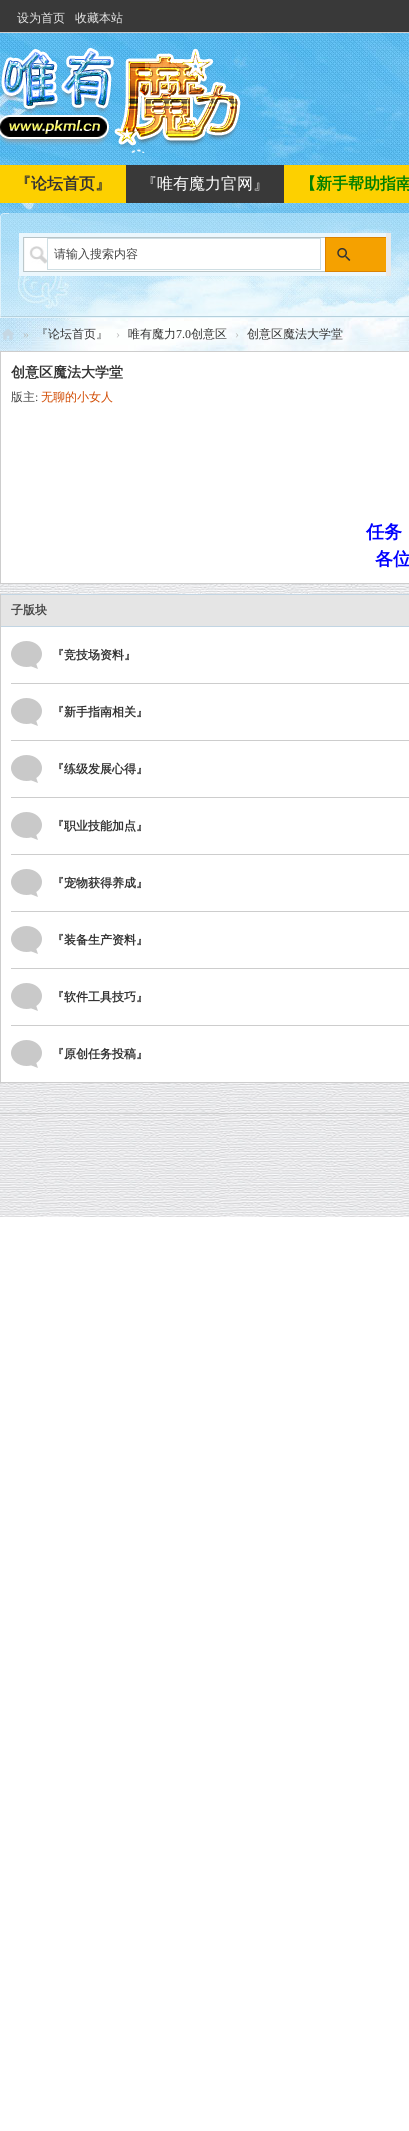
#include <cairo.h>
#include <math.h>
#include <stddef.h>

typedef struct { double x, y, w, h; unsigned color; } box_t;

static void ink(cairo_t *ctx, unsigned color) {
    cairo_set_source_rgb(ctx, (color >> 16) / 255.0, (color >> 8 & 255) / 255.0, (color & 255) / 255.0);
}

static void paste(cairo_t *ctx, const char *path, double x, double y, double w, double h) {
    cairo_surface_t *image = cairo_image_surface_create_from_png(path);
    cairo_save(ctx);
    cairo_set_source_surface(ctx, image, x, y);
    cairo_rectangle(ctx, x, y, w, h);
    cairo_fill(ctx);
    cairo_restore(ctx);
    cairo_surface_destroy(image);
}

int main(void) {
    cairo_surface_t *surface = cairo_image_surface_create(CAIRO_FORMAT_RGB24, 409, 2131);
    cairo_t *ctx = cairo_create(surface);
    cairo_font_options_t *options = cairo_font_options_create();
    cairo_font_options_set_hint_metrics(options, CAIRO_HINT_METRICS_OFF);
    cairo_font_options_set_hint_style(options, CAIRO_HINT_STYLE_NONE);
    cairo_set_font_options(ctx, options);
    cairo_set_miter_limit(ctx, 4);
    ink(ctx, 0xFFFFFF);
    cairo_paint(ctx);
    ink(ctx, 0x393939);
    cairo_rectangle(ctx, 0, 0, 409, 32);
    cairo_fill(ctx);
    ink(ctx, 0xCDCDCD);
    cairo_rectangle(ctx, 0, 32, 409, 1);
    cairo_fill(ctx);
    cairo_select_font_face(ctx, "WenQuanYi Zen Hei Medium", CAIRO_FONT_SLANT_NORMAL, CAIRO_FONT_WEIGHT_NORMAL);
    cairo_set_font_size(ctx, 12);
    ink(ctx, 0xE6E6E6);
    cairo_move_to(ctx, 17, 22);
    cairo_show_text(ctx, "设为首页");
    cairo_move_to(ctx, 75, 22);
    cairo_show_text(ctx, "收藏本站");
    paste(ctx, "media/1.png", 0, 1083, 409, 134);
    paste(ctx, "media/2.png", 0, 33, 409, 561);
    paste(ctx, "media/3.png", 0, 47, 241, 106);
    ink(ctx, 0xFDD000);
    cairo_rectangle(ctx, 0, 165, 409, 38);
    cairo_fill(ctx);
    cairo_select_font_face(ctx, "WenQuanYi Zen Hei", CAIRO_FONT_SLANT_NORMAL, CAIRO_FONT_WEIGHT_BOLD);
    cairo_set_font_size(ctx, 16);
    ink(ctx, 0x333333);
    cairo_move_to(ctx, 15, 189);
    cairo_show_text(ctx, "『论坛首页』");
    ink(ctx, 0x393939);
    cairo_rectangle(ctx, 126, 165, 158, 38);
    cairo_fill(ctx);
    cairo_select_font_face(ctx, "WenQuanYi Zen Hei Medium", CAIRO_FONT_SLANT_NORMAL, CAIRO_FONT_WEIGHT_NORMAL);
    ink(ctx, 0xFFFFFF);
    cairo_move_to(ctx, 141, 189);
    cairo_show_text(ctx, "『唯有魔力官网』");
    cairo_select_font_face(ctx, "WenQuanYi Zen Hei", CAIRO_FONT_SLANT_NORMAL, CAIRO_FONT_WEIGHT_BOLD);
    ink(ctx, 0x008000);
    cairo_move_to(ctx, 300, 189);
    cairo_show_text(ctx, "【新手帮助指南");
    paste(ctx, "media/4.png", 0, 316, 409, 2);
    cairo_set_source_rgba(ctx, 0.863, 0.957, 0.992, 0.45);
    cairo_rectangle(ctx, 9, 213, 400, 105);
    cairo_fill(ctx);
    paste(ctx, "media/5.png", 0, 213, 9, 105);
    ink(ctx, 0xEAEAEA);
    cairo_rectangle(ctx, 386, 233, 5, 43);
    cairo_fill(ctx);
    paste(ctx, "media/6.png", 19, 233, 28, 43);
    paste(ctx, "media/7.png", 47, 233, 274, 43);
    cairo_rectangle(ctx, 47.5, 238.5, 273, 31);
    ink(ctx, 0xCFDEE3);
    cairo_set_line_width(ctx, 1);
    cairo_stroke(ctx);
    cairo_select_font_face(ctx, "WenQuanYi Zen Hei Medium", CAIRO_FONT_SLANT_NORMAL, CAIRO_FONT_WEIGHT_NORMAL);
    cairo_set_font_size(ctx, 12);
    ink(ctx, 0x444444);
    cairo_move_to(ctx, 54, 258);
    cairo_show_text(ctx, "请输入搜索内容");
    paste(ctx, "media/8.png", 321, 233, 65, 43);
    paste(ctx, "media/9.png", 337, 248, 14, 13);
    paste(ctx, "media/10.png", 2, 329, 12, 11);
    cairo_select_font_face(ctx, "Liberation Serif", CAIRO_FONT_SLANT_NORMAL, CAIRO_FONT_WEIGHT_NORMAL);
    ink(ctx, 0xBDBDBD);
    cairo_move_to(ctx, 23, 338);
    cairo_show_text(ctx, "»");
    cairo_select_font_face(ctx, "WenQuanYi Zen Hei Medium", CAIRO_FONT_SLANT_NORMAL, CAIRO_FONT_WEIGHT_NORMAL);
    ink(ctx, 0x333333);
    cairo_move_to(ctx, 36, 338);
    cairo_show_text(ctx, "『论坛首页』");
    cairo_select_font_face(ctx, "Liberation Serif", CAIRO_FONT_SLANT_NORMAL, CAIRO_FONT_WEIGHT_NORMAL);
    ink(ctx, 0xBDBDBD);
    cairo_move_to(ctx, 116, 338);
    cairo_show_text(ctx, "›");
    cairo_select_font_face(ctx, "WenQuanYi Zen Hei Medium", CAIRO_FONT_SLANT_NORMAL, CAIRO_FONT_WEIGHT_NORMAL);
    ink(ctx, 0x333333);
    cairo_move_to(ctx, 128, 338);
    cairo_show_text(ctx, "唯有魔力");
    cairo_select_font_face(ctx, "Liberation Serif", CAIRO_FONT_SLANT_NORMAL, CAIRO_FONT_WEIGHT_NORMAL);
    cairo_move_to(ctx, 176, 338);
    cairo_show_text(ctx, "7.0");
    cairo_select_font_face(ctx, "WenQuanYi Zen Hei Medium", CAIRO_FONT_SLANT_NORMAL, CAIRO_FONT_WEIGHT_NORMAL);
    cairo_move_to(ctx, 191, 338);
    cairo_show_text(ctx, "创意区");
    cairo_select_font_face(ctx, "Liberation Serif", CAIRO_FONT_SLANT_NORMAL, CAIRO_FONT_WEIGHT_NORMAL);
    ink(ctx, 0xBDBDBD);
    cairo_move_to(ctx, 235, 338);
    cairo_show_text(ctx, "›");
    cairo_select_font_face(ctx, "WenQuanYi Zen Hei Medium", CAIRO_FONT_SLANT_NORMAL, CAIRO_FONT_WEIGHT_NORMAL);
    ink(ctx, 0x333333);
    cairo_move_to(ctx, 247, 338);
    cairo_show_text(ctx, "创意区魔法大学堂");
    ink(ctx, 0xFFFFFF);
    cairo_rectangle(ctx, 0.5, 351.5, 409, 232);
    cairo_fill_preserve(ctx);
    ink(ctx, 0xCDCDCD);
    cairo_stroke(ctx);
    cairo_select_font_face(ctx, "WenQuanYi Zen Hei", CAIRO_FONT_SLANT_NORMAL, CAIRO_FONT_WEIGHT_BOLD);
    cairo_set_font_size(ctx, 14);
    ink(ctx, 0x333333);
    cairo_move_to(ctx, 11, 377);
    cairo_show_text(ctx, "创意区魔法大学堂");
    cairo_select_font_face(ctx, "WenQuanYi Zen Hei Medium", CAIRO_FONT_SLANT_NORMAL, CAIRO_FONT_WEIGHT_NORMAL);
    cairo_set_font_size(ctx, 12);
    ink(ctx, 0x444444);
    cairo_move_to(ctx, 11, 401);
    cairo_show_text(ctx, "版主");
    cairo_select_font_face(ctx, "Liberation Serif", CAIRO_FONT_SLANT_NORMAL, CAIRO_FONT_WEIGHT_NORMAL);
    cairo_move_to(ctx, 35, 401);
    cairo_show_text(ctx, ":");
    cairo_select_font_face(ctx, "WenQuanYi Zen Hei Medium", CAIRO_FONT_SLANT_NORMAL, CAIRO_FONT_WEIGHT_NORMAL);
    ink(ctx, 0xD14A01);
    cairo_move_to(ctx, 41, 401);
    cairo_show_text(ctx, "无聊的小女人");
    cairo_select_font_face(ctx, "WenQuanYi Zen Hei", CAIRO_FONT_SLANT_NORMAL, CAIRO_FONT_WEIGHT_BOLD);
    cairo_set_font_size(ctx, 18);
    ink(ctx, 0x0000FF);
    cairo_move_to(ctx, 366, 538);
    cairo_show_text(ctx, "任务");
    cairo_move_to(ctx, 375, 565);
    cairo_show_text(ctx, "各位");
    {
        static const box_t items[] = {
            {0, 1082, 409, 1, 0xCDCDCD},
            {0, 594, 1, 489, 0xCDCDCD},
            {1, 595, 408, 31, 0xE5E5E5},
            {1, 594, 408, 1, 0xC2D5E3},
            {1, 626, 408, 1, 0xC2D5E3},
        };
        for (size_t i = 0; i < sizeof items / sizeof *items; i++) {
            ink(ctx, items[i].color);
            cairo_rectangle(ctx, items[i].x, items[i].y, items[i].w, items[i].h);
            cairo_fill(ctx);
        }
    }
    cairo_set_font_size(ctx, 12);
    ink(ctx, 0x444444);
    cairo_move_to(ctx, 11, 614);
    cairo_show_text(ctx, "子版块");
    paste(ctx, "media/11.png", 11, 641, 31, 28);
    ink(ctx, 0x333333);
    cairo_move_to(ctx, 52, 659);
    cairo_show_text(ctx, "『竞技场资料』");
    paste(ctx, "media/11.png", 11, 698, 31, 28);
    ink(ctx, 0xCDCDCD);
    cairo_rectangle(ctx, 11, 683, 398, 1);
    cairo_fill(ctx);
    ink(ctx, 0x333333);
    cairo_move_to(ctx, 52, 716);
    cairo_show_text(ctx, "『新手指南相关』");
    paste(ctx, "media/11.png", 11, 755, 31, 28);
    ink(ctx, 0xCDCDCD);
    cairo_rectangle(ctx, 11, 740, 398, 1);
    cairo_fill(ctx);
    ink(ctx, 0x333333);
    cairo_move_to(ctx, 52, 773);
    cairo_show_text(ctx, "『练级发展心得』");
    paste(ctx, "media/11.png", 11, 812, 31, 28);
    ink(ctx, 0xCDCDCD);
    cairo_rectangle(ctx, 11, 797, 398, 1);
    cairo_fill(ctx);
    ink(ctx, 0x333333);
    cairo_move_to(ctx, 52, 830);
    cairo_show_text(ctx, "『职业技能加点』");
    paste(ctx, "media/11.png", 11, 869, 31, 28);
    ink(ctx, 0xCDCDCD);
    cairo_rectangle(ctx, 11, 854, 398, 1);
    cairo_fill(ctx);
    ink(ctx, 0x333333);
    cairo_move_to(ctx, 52, 887);
    cairo_show_text(ctx, "『宠物获得养成』");
    paste(ctx, "media/11.png", 11, 926, 31, 28);
    ink(ctx, 0xCDCDCD);
    cairo_rectangle(ctx, 11, 911, 398, 1);
    cairo_fill(ctx);
    ink(ctx, 0x333333);
    cairo_move_to(ctx, 52, 944);
    cairo_show_text(ctx, "『装备生产资料』");
    paste(ctx, "media/11.png", 11, 983, 31, 28);
    ink(ctx, 0xCDCDCD);
    cairo_rectangle(ctx, 11, 968, 398, 1);
    cairo_fill(ctx);
    ink(ctx, 0x333333);
    cairo_move_to(ctx, 52, 1001);
    cairo_show_text(ctx, "『软件工具技巧』");
    paste(ctx, "media/11.png", 11, 1040, 31, 28);
    ink(ctx, 0xCDCDCD);
    cairo_rectangle(ctx, 11, 1025, 398, 1);
    cairo_fill(ctx);
    ink(ctx, 0x333333);
    cairo_move_to(ctx, 52, 1058);
    cairo_show_text(ctx, "『原创任务投稿』");
    ink(ctx, 0xCDCDCD);
    cairo_rectangle(ctx, 0, 1113, 409, 1);
    cairo_fill(ctx);
    cairo_surface_write_to_png(surface, "image.png");
    cairo_font_options_destroy(options);
    cairo_destroy(ctx);
    cairo_surface_destroy(surface);
    return 0;
}
